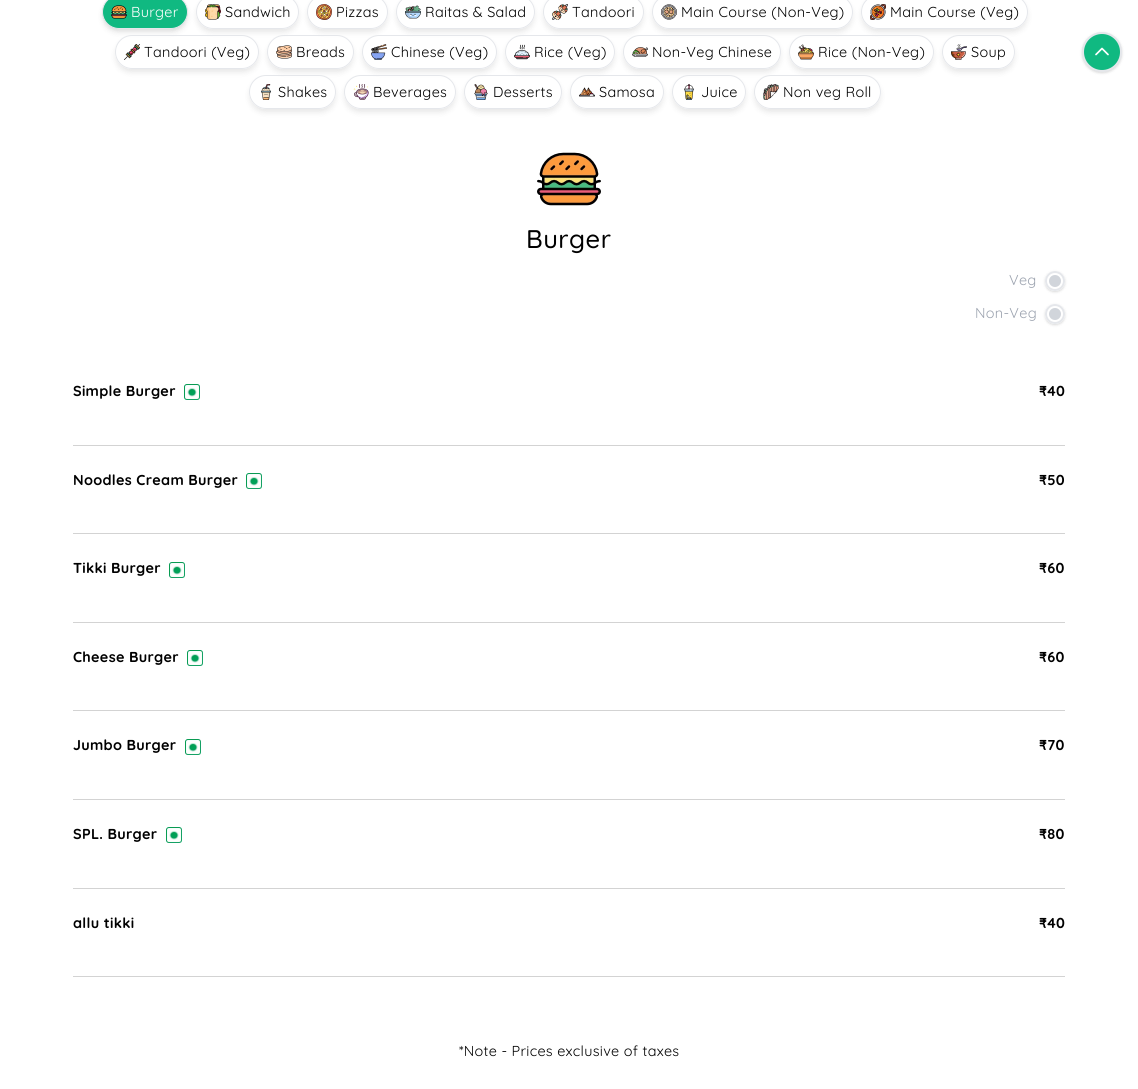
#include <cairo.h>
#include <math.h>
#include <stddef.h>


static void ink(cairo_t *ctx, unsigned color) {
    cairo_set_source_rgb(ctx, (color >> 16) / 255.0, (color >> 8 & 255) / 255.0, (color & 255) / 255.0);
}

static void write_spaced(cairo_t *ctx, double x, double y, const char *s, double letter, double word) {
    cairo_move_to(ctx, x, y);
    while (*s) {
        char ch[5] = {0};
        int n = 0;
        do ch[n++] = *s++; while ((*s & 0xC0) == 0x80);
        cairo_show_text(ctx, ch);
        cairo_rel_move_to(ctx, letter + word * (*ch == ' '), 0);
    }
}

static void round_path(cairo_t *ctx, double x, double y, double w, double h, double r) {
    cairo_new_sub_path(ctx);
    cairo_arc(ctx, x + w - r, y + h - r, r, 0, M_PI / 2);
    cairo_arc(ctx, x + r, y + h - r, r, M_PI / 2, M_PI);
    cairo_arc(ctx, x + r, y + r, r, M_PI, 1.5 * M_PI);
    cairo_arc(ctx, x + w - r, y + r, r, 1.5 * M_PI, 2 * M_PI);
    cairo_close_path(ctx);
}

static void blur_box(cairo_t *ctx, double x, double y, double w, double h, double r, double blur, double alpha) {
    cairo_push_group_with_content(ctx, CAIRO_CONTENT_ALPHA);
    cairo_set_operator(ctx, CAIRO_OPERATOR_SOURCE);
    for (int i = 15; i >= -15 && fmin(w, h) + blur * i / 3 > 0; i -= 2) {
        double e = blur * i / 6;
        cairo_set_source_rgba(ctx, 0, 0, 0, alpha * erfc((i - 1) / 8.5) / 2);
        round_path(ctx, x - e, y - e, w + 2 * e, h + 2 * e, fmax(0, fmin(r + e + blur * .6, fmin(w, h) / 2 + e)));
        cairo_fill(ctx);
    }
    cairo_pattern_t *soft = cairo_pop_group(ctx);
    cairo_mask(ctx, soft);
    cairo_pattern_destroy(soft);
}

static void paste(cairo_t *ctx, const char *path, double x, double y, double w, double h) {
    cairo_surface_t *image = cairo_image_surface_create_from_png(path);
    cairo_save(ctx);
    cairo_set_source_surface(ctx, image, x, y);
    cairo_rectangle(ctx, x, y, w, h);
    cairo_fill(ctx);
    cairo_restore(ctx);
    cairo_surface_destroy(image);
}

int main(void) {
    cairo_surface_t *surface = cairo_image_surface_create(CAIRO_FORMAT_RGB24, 1138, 1089);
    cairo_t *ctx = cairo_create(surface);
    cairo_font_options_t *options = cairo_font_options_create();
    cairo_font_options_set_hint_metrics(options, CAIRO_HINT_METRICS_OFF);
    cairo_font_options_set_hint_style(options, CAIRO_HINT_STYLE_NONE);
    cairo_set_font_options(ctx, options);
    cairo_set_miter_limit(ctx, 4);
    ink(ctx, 0xFFFFFF);
    cairo_paint(ctx);
    ink(ctx, 0x000000);
    blur_box(ctx, 103, -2, 84, 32, 16, 2, 0.06);
    blur_box(ctx, 103, 0, 84, 32, 16, 3, 0.1);
    ink(ctx, 0x10B981);
    round_path(ctx, 102.5, -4.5, 85, 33, 16.5);
    cairo_fill_preserve(ctx);
    ink(ctx, 0xE5E7EB);
    cairo_set_line_width(ctx, 1);
    cairo_stroke(ctx);
    paste(ctx, "media/1.png", 111, 5, 16, 14);
    cairo_select_font_face(ctx, "Quicksand", CAIRO_FONT_SLANT_NORMAL, CAIRO_FONT_WEIGHT_NORMAL);
    cairo_set_font_size(ctx, 14.4);
    ink(ctx, 0xFFFFFF);
    write_spaced(ctx, 131, 17, "Burger", 0.3, 0);
    cairo_save(ctx);
    cairo_set_fill_rule(ctx, CAIRO_FILL_RULE_EVEN_ODD);
    cairo_new_path(ctx);
    cairo_move_to(ctx, 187, 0);
    cairo_line_to(ctx, 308, 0);
    cairo_line_to(ctx, 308, 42);
    cairo_line_to(ctx, 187, 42);
    cairo_close_path(ctx);
    cairo_move_to(ctx, 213, -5);
    cairo_line_to(ctx, 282, -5);
    cairo_curve_to(ctx, 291.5, -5, 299, 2.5, 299, 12);
    cairo_curve_to(ctx, 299, 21.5, 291.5, 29, 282, 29);
    cairo_line_to(ctx, 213, 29);
    cairo_curve_to(ctx, 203.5, 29, 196, 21.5, 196, 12);
    cairo_curve_to(ctx, 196, 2.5, 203.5, -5, 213, -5);
    cairo_close_path(ctx);
    cairo_clip(ctx);
    ink(ctx, 0x000000);
    blur_box(ctx, 197, 0, 101, 32, 16, 3, 0.1);
    cairo_restore(ctx);
    round_path(ctx, 196.5, -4.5, 102, 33, 16.5);
    ink(ctx, 0xE5E7EB);
    cairo_stroke(ctx);
    paste(ctx, "media/2.png", 205, 4, 16, 16);
    ink(ctx, 0x000000);
    write_spaced(ctx, 225, 17, "Sandwich", 0.3, 0);
    cairo_save(ctx);
    cairo_set_fill_rule(ctx, CAIRO_FILL_RULE_EVEN_ODD);
    cairo_new_path(ctx);
    cairo_move_to(ctx, 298, 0);
    cairo_line_to(ctx, 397, 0);
    cairo_line_to(ctx, 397, 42);
    cairo_line_to(ctx, 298, 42);
    cairo_close_path(ctx);
    cairo_move_to(ctx, 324, -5);
    cairo_line_to(ctx, 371, -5);
    cairo_curve_to(ctx, 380.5, -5, 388, 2.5, 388, 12);
    cairo_curve_to(ctx, 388, 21.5, 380.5, 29, 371, 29);
    cairo_line_to(ctx, 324, 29);
    cairo_curve_to(ctx, 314.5, 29, 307, 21.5, 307, 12);
    cairo_curve_to(ctx, 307, 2.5, 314.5, -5, 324, -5);
    cairo_close_path(ctx);
    cairo_clip(ctx);
    ink(ctx, 0x000000);
    blur_box(ctx, 308, 0, 79, 32, 16, 3, 0.1);
    cairo_restore(ctx);
    round_path(ctx, 307.5, -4.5, 80, 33, 16.5);
    ink(ctx, 0xE5E7EB);
    cairo_stroke(ctx);
    paste(ctx, "media/3.png", 316, 4, 16, 16);
    ink(ctx, 0x000000);
    write_spaced(ctx, 336, 17, "Pizzas", 0.3, 0);
    cairo_save(ctx);
    cairo_set_fill_rule(ctx, CAIRO_FILL_RULE_EVEN_ODD);
    cairo_new_path(ctx);
    cairo_move_to(ctx, 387, 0);
    cairo_line_to(ctx, 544, 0);
    cairo_line_to(ctx, 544, 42);
    cairo_line_to(ctx, 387, 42);
    cairo_close_path(ctx);
    cairo_move_to(ctx, 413, -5);
    cairo_line_to(ctx, 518, -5);
    cairo_curve_to(ctx, 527.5, -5, 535, 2.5, 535, 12);
    cairo_curve_to(ctx, 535, 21.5, 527.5, 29, 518, 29);
    cairo_line_to(ctx, 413, 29);
    cairo_curve_to(ctx, 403.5, 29, 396, 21.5, 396, 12);
    cairo_curve_to(ctx, 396, 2.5, 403.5, -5, 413, -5);
    cairo_close_path(ctx);
    cairo_clip(ctx);
    ink(ctx, 0x000000);
    blur_box(ctx, 397, 0, 137, 32, 16, 3, 0.1);
    cairo_restore(ctx);
    round_path(ctx, 396.5, -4.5, 138, 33, 16.5);
    ink(ctx, 0xE5E7EB);
    cairo_stroke(ctx);
    paste(ctx, "media/4.png", 405, 5, 16, 14);
    ink(ctx, 0x000000);
    write_spaced(ctx, 425, 17, "Raitas & Salad", 0.3, 0);
    cairo_save(ctx);
    cairo_set_fill_rule(ctx, CAIRO_FILL_RULE_EVEN_ODD);
    cairo_new_path(ctx);
    cairo_move_to(ctx, 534, 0);
    cairo_line_to(ctx, 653, 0);
    cairo_line_to(ctx, 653, 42);
    cairo_line_to(ctx, 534, 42);
    cairo_close_path(ctx);
    cairo_move_to(ctx, 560, -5);
    cairo_line_to(ctx, 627, -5);
    cairo_curve_to(ctx, 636.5, -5, 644, 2.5, 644, 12);
    cairo_curve_to(ctx, 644, 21.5, 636.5, 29, 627, 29);
    cairo_line_to(ctx, 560, 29);
    cairo_curve_to(ctx, 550.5, 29, 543, 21.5, 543, 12);
    cairo_curve_to(ctx, 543, 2.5, 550.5, -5, 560, -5);
    cairo_close_path(ctx);
    cairo_clip(ctx);
    ink(ctx, 0x000000);
    blur_box(ctx, 544, 0, 99, 32, 16, 3, 0.1);
    cairo_restore(ctx);
    round_path(ctx, 543.5, -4.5, 100, 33, 16.5);
    ink(ctx, 0xE5E7EB);
    cairo_stroke(ctx);
    paste(ctx, "media/5.png", 552, 4, 16, 16);
    ink(ctx, 0x000000);
    write_spaced(ctx, 572, 17, "Tandoori", 0.3, 0);
    cairo_save(ctx);
    cairo_set_fill_rule(ctx, CAIRO_FILL_RULE_EVEN_ODD);
    cairo_new_path(ctx);
    cairo_move_to(ctx, 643, 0);
    cairo_line_to(ctx, 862, 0);
    cairo_line_to(ctx, 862, 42);
    cairo_line_to(ctx, 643, 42);
    cairo_close_path(ctx);
    cairo_move_to(ctx, 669, -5);
    cairo_line_to(ctx, 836, -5);
    cairo_curve_to(ctx, 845.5, -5, 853, 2.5, 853, 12);
    cairo_curve_to(ctx, 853, 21.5, 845.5, 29, 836, 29);
    cairo_line_to(ctx, 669, 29);
    cairo_curve_to(ctx, 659.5, 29, 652, 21.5, 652, 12);
    cairo_curve_to(ctx, 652, 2.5, 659.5, -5, 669, -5);
    cairo_close_path(ctx);
    cairo_clip(ctx);
    ink(ctx, 0x000000);
    blur_box(ctx, 653, 0, 199, 32, 16, 3, 0.1);
    cairo_restore(ctx);
    round_path(ctx, 652.5, -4.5, 200, 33, 16.5);
    ink(ctx, 0xE5E7EB);
    cairo_stroke(ctx);
    paste(ctx, "media/6.png", 661, 4, 16, 16);
    ink(ctx, 0x000000);
    write_spaced(ctx, 681, 17, "Main Course (Non-Veg)", 0.3, 0);
    cairo_save(ctx);
    cairo_set_fill_rule(ctx, CAIRO_FILL_RULE_EVEN_ODD);
    cairo_new_path(ctx);
    cairo_move_to(ctx, 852, 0);
    cairo_line_to(ctx, 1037, 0);
    cairo_line_to(ctx, 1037, 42);
    cairo_line_to(ctx, 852, 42);
    cairo_close_path(ctx);
    cairo_move_to(ctx, 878, -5);
    cairo_line_to(ctx, 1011, -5);
    cairo_curve_to(ctx, 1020.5, -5, 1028, 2.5, 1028, 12);
    cairo_curve_to(ctx, 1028, 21.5, 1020.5, 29, 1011, 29);
    cairo_line_to(ctx, 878, 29);
    cairo_curve_to(ctx, 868.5, 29, 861, 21.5, 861, 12);
    cairo_curve_to(ctx, 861, 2.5, 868.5, -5, 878, -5);
    cairo_close_path(ctx);
    cairo_clip(ctx);
    ink(ctx, 0x000000);
    blur_box(ctx, 862, 0, 165, 32, 16, 3, 0.1);
    cairo_restore(ctx);
    round_path(ctx, 861.5, -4.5, 166, 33, 16.5);
    ink(ctx, 0xE5E7EB);
    cairo_stroke(ctx);
    paste(ctx, "media/7.png", 870, 4, 16, 16);
    ink(ctx, 0x000000);
    write_spaced(ctx, 890, 17, "Main Course (Veg)", 0.3, 0);
    cairo_save(ctx);
    cairo_set_fill_rule(ctx, CAIRO_FILL_RULE_EVEN_ODD);
    cairo_new_path(ctx);
    cairo_move_to(ctx, 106, 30);
    cairo_line_to(ctx, 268, 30);
    cairo_line_to(ctx, 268, 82);
    cairo_line_to(ctx, 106, 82);
    cairo_close_path(ctx);
    cairo_move_to(ctx, 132, 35);
    cairo_line_to(ctx, 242, 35);
    cairo_curve_to(ctx, 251.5, 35, 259, 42.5, 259, 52);
    cairo_curve_to(ctx, 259, 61.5, 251.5, 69, 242, 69);
    cairo_line_to(ctx, 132, 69);
    cairo_curve_to(ctx, 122.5, 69, 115, 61.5, 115, 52);
    cairo_curve_to(ctx, 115, 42.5, 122.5, 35, 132, 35);
    cairo_close_path(ctx);
    cairo_clip(ctx);
    ink(ctx, 0x000000);
    blur_box(ctx, 116, 40, 142, 32, 16, 3, 0.1);
    cairo_restore(ctx);
    round_path(ctx, 115.5, 35.5, 143, 33, 16.5);
    ink(ctx, 0xE5E7EB);
    cairo_stroke(ctx);
    paste(ctx, "media/8.png", 124, 44, 16, 16);
    ink(ctx, 0x000000);
    write_spaced(ctx, 144, 57, "Tandoori (Veg)", 0.3, 0);
    cairo_save(ctx);
    cairo_set_fill_rule(ctx, CAIRO_FILL_RULE_EVEN_ODD);
    cairo_new_path(ctx);
    cairo_move_to(ctx, 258, 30);
    cairo_line_to(ctx, 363, 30);
    cairo_line_to(ctx, 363, 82);
    cairo_line_to(ctx, 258, 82);
    cairo_close_path(ctx);
    cairo_move_to(ctx, 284, 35);
    cairo_line_to(ctx, 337, 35);
    cairo_curve_to(ctx, 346.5, 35, 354, 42.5, 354, 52);
    cairo_curve_to(ctx, 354, 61.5, 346.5, 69, 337, 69);
    cairo_line_to(ctx, 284, 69);
    cairo_curve_to(ctx, 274.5, 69, 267, 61.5, 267, 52);
    cairo_curve_to(ctx, 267, 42.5, 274.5, 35, 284, 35);
    cairo_close_path(ctx);
    cairo_clip(ctx);
    ink(ctx, 0x000000);
    blur_box(ctx, 268, 40, 85, 32, 16, 3, 0.1);
    cairo_restore(ctx);
    round_path(ctx, 267.5, 35.5, 86, 33, 16.5);
    ink(ctx, 0xE5E7EB);
    cairo_stroke(ctx);
    paste(ctx, "media/9.png", 276, 45, 16, 14);
    ink(ctx, 0x000000);
    write_spaced(ctx, 296, 57, "Breads", 0.3, 0);
    cairo_save(ctx);
    cairo_set_fill_rule(ctx, CAIRO_FILL_RULE_EVEN_ODD);
    cairo_new_path(ctx);
    cairo_move_to(ctx, 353, 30);
    cairo_line_to(ctx, 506, 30);
    cairo_line_to(ctx, 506, 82);
    cairo_line_to(ctx, 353, 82);
    cairo_close_path(ctx);
    cairo_move_to(ctx, 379, 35);
    cairo_line_to(ctx, 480, 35);
    cairo_curve_to(ctx, 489.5, 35, 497, 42.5, 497, 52);
    cairo_curve_to(ctx, 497, 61.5, 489.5, 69, 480, 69);
    cairo_line_to(ctx, 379, 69);
    cairo_curve_to(ctx, 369.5, 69, 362, 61.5, 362, 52);
    cairo_curve_to(ctx, 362, 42.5, 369.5, 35, 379, 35);
    cairo_close_path(ctx);
    cairo_clip(ctx);
    ink(ctx, 0x000000);
    blur_box(ctx, 363, 40, 133, 32, 16, 3, 0.1);
    cairo_restore(ctx);
    round_path(ctx, 362.5, 35.5, 134, 33, 16.5);
    ink(ctx, 0xE5E7EB);
    cairo_stroke(ctx);
    paste(ctx, "media/10.png", 371, 44, 16, 16);
    ink(ctx, 0x000000);
    write_spaced(ctx, 391, 57, "Chinese (Veg)", 0.3, 0);
    cairo_save(ctx);
    cairo_set_fill_rule(ctx, CAIRO_FILL_RULE_EVEN_ODD);
    cairo_new_path(ctx);
    cairo_move_to(ctx, 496, 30);
    cairo_line_to(ctx, 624, 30);
    cairo_line_to(ctx, 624, 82);
    cairo_line_to(ctx, 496, 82);
    cairo_close_path(ctx);
    cairo_move_to(ctx, 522, 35);
    cairo_line_to(ctx, 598, 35);
    cairo_curve_to(ctx, 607.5, 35, 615, 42.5, 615, 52);
    cairo_curve_to(ctx, 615, 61.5, 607.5, 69, 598, 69);
    cairo_line_to(ctx, 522, 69);
    cairo_curve_to(ctx, 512.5, 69, 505, 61.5, 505, 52);
    cairo_curve_to(ctx, 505, 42.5, 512.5, 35, 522, 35);
    cairo_close_path(ctx);
    cairo_clip(ctx);
    ink(ctx, 0x000000);
    blur_box(ctx, 506, 40, 108, 32, 16, 3, 0.1);
    cairo_restore(ctx);
    round_path(ctx, 505.5, 35.5, 109, 33, 16.5);
    ink(ctx, 0xE5E7EB);
    cairo_stroke(ctx);
    paste(ctx, "media/11.png", 514, 44, 16, 16);
    ink(ctx, 0x000000);
    write_spaced(ctx, 534, 57, "Rice (Veg)", 0.3, 0);
    cairo_save(ctx);
    cairo_set_fill_rule(ctx, CAIRO_FILL_RULE_EVEN_ODD);
    cairo_new_path(ctx);
    cairo_move_to(ctx, 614, 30);
    cairo_line_to(ctx, 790, 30);
    cairo_line_to(ctx, 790, 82);
    cairo_line_to(ctx, 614, 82);
    cairo_close_path(ctx);
    cairo_move_to(ctx, 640, 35);
    cairo_line_to(ctx, 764, 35);
    cairo_curve_to(ctx, 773.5, 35, 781, 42.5, 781, 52);
    cairo_curve_to(ctx, 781, 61.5, 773.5, 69, 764, 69);
    cairo_line_to(ctx, 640, 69);
    cairo_curve_to(ctx, 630.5, 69, 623, 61.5, 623, 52);
    cairo_curve_to(ctx, 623, 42.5, 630.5, 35, 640, 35);
    cairo_close_path(ctx);
    cairo_clip(ctx);
    ink(ctx, 0x000000);
    blur_box(ctx, 624, 40, 156, 32, 16, 3, 0.1);
    cairo_restore(ctx);
    round_path(ctx, 623.5, 35.5, 157, 33, 16.5);
    ink(ctx, 0xE5E7EB);
    cairo_stroke(ctx);
    paste(ctx, "media/12.png", 632, 47, 16, 10);
    ink(ctx, 0x000000);
    write_spaced(ctx, 652, 57, "Non-Veg Chinese", 0.3, 0);
    cairo_save(ctx);
    cairo_set_fill_rule(ctx, CAIRO_FILL_RULE_EVEN_ODD);
    cairo_new_path(ctx);
    cairo_move_to(ctx, 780, 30);
    cairo_line_to(ctx, 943, 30);
    cairo_line_to(ctx, 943, 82);
    cairo_line_to(ctx, 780, 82);
    cairo_close_path(ctx);
    cairo_move_to(ctx, 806, 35);
    cairo_line_to(ctx, 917, 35);
    cairo_curve_to(ctx, 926.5, 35, 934, 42.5, 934, 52);
    cairo_curve_to(ctx, 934, 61.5, 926.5, 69, 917, 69);
    cairo_line_to(ctx, 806, 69);
    cairo_curve_to(ctx, 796.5, 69, 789, 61.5, 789, 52);
    cairo_curve_to(ctx, 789, 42.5, 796.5, 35, 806, 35);
    cairo_close_path(ctx);
    cairo_clip(ctx);
    ink(ctx, 0x000000);
    blur_box(ctx, 790, 40, 143, 32, 16, 3, 0.1);
    cairo_restore(ctx);
    round_path(ctx, 789.5, 35.5, 144, 33, 16.5);
    ink(ctx, 0xE5E7EB);
    cairo_stroke(ctx);
    paste(ctx, "media/13.png", 798, 44, 16, 16);
    ink(ctx, 0x000000);
    write_spaced(ctx, 818, 57, "Rice (Non-Veg)", 0.3, 0);
    cairo_save(ctx);
    cairo_set_fill_rule(ctx, CAIRO_FILL_RULE_EVEN_ODD);
    cairo_new_path(ctx);
    cairo_move_to(ctx, 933, 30);
    cairo_line_to(ctx, 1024, 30);
    cairo_line_to(ctx, 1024, 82);
    cairo_line_to(ctx, 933, 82);
    cairo_close_path(ctx);
    cairo_move_to(ctx, 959, 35);
    cairo_line_to(ctx, 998, 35);
    cairo_curve_to(ctx, 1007.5, 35, 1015, 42.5, 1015, 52);
    cairo_curve_to(ctx, 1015, 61.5, 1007.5, 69, 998, 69);
    cairo_line_to(ctx, 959, 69);
    cairo_curve_to(ctx, 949.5, 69, 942, 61.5, 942, 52);
    cairo_curve_to(ctx, 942, 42.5, 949.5, 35, 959, 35);
    cairo_close_path(ctx);
    cairo_clip(ctx);
    ink(ctx, 0x000000);
    blur_box(ctx, 943, 40, 71, 32, 16, 3, 0.1);
    cairo_restore(ctx);
    round_path(ctx, 942.5, 35.5, 72, 33, 16.5);
    ink(ctx, 0xE5E7EB);
    cairo_stroke(ctx);
    paste(ctx, "media/14.png", 951, 44, 16, 16);
    ink(ctx, 0x000000);
    write_spaced(ctx, 971, 57, "Soup", 0.3, 0);
    cairo_save(ctx);
    cairo_set_fill_rule(ctx, CAIRO_FILL_RULE_EVEN_ODD);
    cairo_new_path(ctx);
    cairo_move_to(ctx, 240, 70);
    cairo_line_to(ctx, 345, 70);
    cairo_line_to(ctx, 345, 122);
    cairo_line_to(ctx, 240, 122);
    cairo_close_path(ctx);
    cairo_move_to(ctx, 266, 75);
    cairo_line_to(ctx, 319, 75);
    cairo_curve_to(ctx, 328.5, 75, 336, 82.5, 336, 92);
    cairo_curve_to(ctx, 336, 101.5, 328.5, 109, 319, 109);
    cairo_line_to(ctx, 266, 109);
    cairo_curve_to(ctx, 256.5, 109, 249, 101.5, 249, 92);
    cairo_curve_to(ctx, 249, 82.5, 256.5, 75, 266, 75);
    cairo_close_path(ctx);
    cairo_clip(ctx);
    ink(ctx, 0x000000);
    blur_box(ctx, 250, 80, 85, 32, 16, 3, 0.1);
    cairo_restore(ctx);
    round_path(ctx, 249.5, 75.5, 86, 33, 16.5);
    ink(ctx, 0xE5E7EB);
    cairo_stroke(ctx);
    paste(ctx, "media/15.png", 261, 84, 10, 16);
    ink(ctx, 0x000000);
    write_spaced(ctx, 278, 97, "Shakes", 0.3, 0);
    cairo_save(ctx);
    cairo_set_fill_rule(ctx, CAIRO_FILL_RULE_EVEN_ODD);
    cairo_new_path(ctx);
    cairo_move_to(ctx, 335, 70);
    cairo_line_to(ctx, 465, 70);
    cairo_line_to(ctx, 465, 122);
    cairo_line_to(ctx, 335, 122);
    cairo_close_path(ctx);
    cairo_move_to(ctx, 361, 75);
    cairo_line_to(ctx, 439, 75);
    cairo_curve_to(ctx, 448.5, 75, 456, 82.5, 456, 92);
    cairo_curve_to(ctx, 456, 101.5, 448.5, 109, 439, 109);
    cairo_line_to(ctx, 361, 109);
    cairo_curve_to(ctx, 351.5, 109, 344, 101.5, 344, 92);
    cairo_curve_to(ctx, 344, 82.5, 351.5, 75, 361, 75);
    cairo_close_path(ctx);
    cairo_clip(ctx);
    ink(ctx, 0x000000);
    blur_box(ctx, 345, 80, 110, 32, 16, 3, 0.1);
    cairo_restore(ctx);
    round_path(ctx, 344.5, 75.5, 111, 33, 16.5);
    ink(ctx, 0xE5E7EB);
    cairo_stroke(ctx);
    paste(ctx, "media/16.png", 353, 84, 16, 16);
    ink(ctx, 0x000000);
    write_spaced(ctx, 373, 97, "Beverages", 0.3, 0);
    cairo_save(ctx);
    cairo_set_fill_rule(ctx, CAIRO_FILL_RULE_EVEN_ODD);
    cairo_new_path(ctx);
    cairo_move_to(ctx, 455, 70);
    cairo_line_to(ctx, 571, 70);
    cairo_line_to(ctx, 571, 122);
    cairo_line_to(ctx, 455, 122);
    cairo_close_path(ctx);
    cairo_move_to(ctx, 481, 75);
    cairo_line_to(ctx, 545, 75);
    cairo_curve_to(ctx, 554.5, 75, 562, 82.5, 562, 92);
    cairo_curve_to(ctx, 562, 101.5, 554.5, 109, 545, 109);
    cairo_line_to(ctx, 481, 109);
    cairo_curve_to(ctx, 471.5, 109, 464, 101.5, 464, 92);
    cairo_curve_to(ctx, 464, 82.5, 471.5, 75, 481, 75);
    cairo_close_path(ctx);
    cairo_clip(ctx);
    ink(ctx, 0x000000);
    blur_box(ctx, 465, 80, 96, 32, 16, 3, 0.1);
    cairo_restore(ctx);
    round_path(ctx, 464.5, 75.5, 97, 33, 16.5);
    ink(ctx, 0xE5E7EB);
    cairo_stroke(ctx);
    paste(ctx, "media/17.png", 474, 84, 14, 16);
    ink(ctx, 0x000000);
    write_spaced(ctx, 493, 97, "Desserts", 0.3, 0);
    cairo_save(ctx);
    cairo_set_fill_rule(ctx, CAIRO_FILL_RULE_EVEN_ODD);
    cairo_new_path(ctx);
    cairo_move_to(ctx, 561, 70);
    cairo_line_to(ctx, 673, 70);
    cairo_line_to(ctx, 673, 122);
    cairo_line_to(ctx, 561, 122);
    cairo_close_path(ctx);
    cairo_move_to(ctx, 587, 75);
    cairo_line_to(ctx, 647, 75);
    cairo_curve_to(ctx, 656.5, 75, 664, 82.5, 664, 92);
    cairo_curve_to(ctx, 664, 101.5, 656.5, 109, 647, 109);
    cairo_line_to(ctx, 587, 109);
    cairo_curve_to(ctx, 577.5, 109, 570, 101.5, 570, 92);
    cairo_curve_to(ctx, 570, 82.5, 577.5, 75, 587, 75);
    cairo_close_path(ctx);
    cairo_clip(ctx);
    ink(ctx, 0x000000);
    blur_box(ctx, 571, 80, 92, 32, 16, 3, 0.1);
    cairo_restore(ctx);
    round_path(ctx, 570.5, 75.5, 93, 33, 16.5);
    ink(ctx, 0xE5E7EB);
    cairo_stroke(ctx);
    paste(ctx, "media/18.png", 579, 87, 16, 10);
    ink(ctx, 0x000000);
    write_spaced(ctx, 599, 97, "Samosa", 0.3, 0);
    cairo_save(ctx);
    cairo_set_fill_rule(ctx, CAIRO_FILL_RULE_EVEN_ODD);
    cairo_new_path(ctx);
    cairo_move_to(ctx, 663, 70);
    cairo_line_to(ctx, 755, 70);
    cairo_line_to(ctx, 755, 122);
    cairo_line_to(ctx, 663, 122);
    cairo_close_path(ctx);
    cairo_move_to(ctx, 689, 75);
    cairo_line_to(ctx, 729, 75);
    cairo_curve_to(ctx, 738.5, 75, 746, 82.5, 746, 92);
    cairo_curve_to(ctx, 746, 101.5, 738.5, 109, 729, 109);
    cairo_line_to(ctx, 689, 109);
    cairo_curve_to(ctx, 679.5, 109, 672, 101.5, 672, 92);
    cairo_curve_to(ctx, 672, 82.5, 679.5, 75, 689, 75);
    cairo_close_path(ctx);
    cairo_clip(ctx);
    ink(ctx, 0x000000);
    blur_box(ctx, 673, 80, 72, 32, 16, 3, 0.1);
    cairo_restore(ctx);
    round_path(ctx, 672.5, 75.5, 73, 33, 16.5);
    ink(ctx, 0xE5E7EB);
    cairo_stroke(ctx);
    paste(ctx, "media/19.png", 684, 84, 10, 16);
    ink(ctx, 0x000000);
    write_spaced(ctx, 701, 97, "Juice", 0.3, 0);
    cairo_save(ctx);
    cairo_set_fill_rule(ctx, CAIRO_FILL_RULE_EVEN_ODD);
    cairo_new_path(ctx);
    cairo_move_to(ctx, 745, 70);
    cairo_line_to(ctx, 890, 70);
    cairo_line_to(ctx, 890, 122);
    cairo_line_to(ctx, 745, 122);
    cairo_close_path(ctx);
    cairo_move_to(ctx, 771, 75);
    cairo_line_to(ctx, 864, 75);
    cairo_curve_to(ctx, 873.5, 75, 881, 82.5, 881, 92);
    cairo_curve_to(ctx, 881, 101.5, 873.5, 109, 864, 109);
    cairo_line_to(ctx, 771, 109);
    cairo_curve_to(ctx, 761.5, 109, 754, 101.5, 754, 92);
    cairo_curve_to(ctx, 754, 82.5, 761.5, 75, 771, 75);
    cairo_close_path(ctx);
    cairo_clip(ctx);
    ink(ctx, 0x000000);
    blur_box(ctx, 755, 80, 125, 32, 16, 3, 0.1);
    cairo_restore(ctx);
    round_path(ctx, 754.5, 75.5, 126, 33, 16.5);
    ink(ctx, 0xE5E7EB);
    cairo_stroke(ctx);
    paste(ctx, "media/20.png", 763, 84, 16, 16);
    ink(ctx, 0x000000);
    write_spaced(ctx, 783, 97, "Non veg Roll", 0.3, 0);
    paste(ctx, "media/21.png", 537, 152, 64, 54);
    cairo_select_font_face(ctx, "Quicksand Medium", CAIRO_FONT_SLANT_NORMAL, CAIRO_FONT_WEIGHT_NORMAL);
    cairo_set_font_size(ctx, 25.5);
    write_spaced(ctx, 526, 248, "Burger", 0.5, 0);
    cairo_select_font_face(ctx, "Quicksand", CAIRO_FONT_SLANT_NORMAL, CAIRO_FONT_WEIGHT_NORMAL);
    cairo_set_font_size(ctx, 14.4);
    ink(ctx, 0x9CA3AF);
    write_spaced(ctx, 1009, 285, "Veg", 0.3, 0);
    cairo_save(ctx);
    cairo_set_fill_rule(ctx, CAIRO_FILL_RULE_EVEN_ODD);
    cairo_new_path(ctx);
    cairo_move_to(ctx, 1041, 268);
    cairo_line_to(ctx, 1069, 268);
    cairo_line_to(ctx, 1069, 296);
    cairo_line_to(ctx, 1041, 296);
    cairo_close_path(ctx);
    cairo_move_to(ctx, 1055, 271);
    cairo_curve_to(ctx, 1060.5, 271, 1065, 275.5, 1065, 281);
    cairo_curve_to(ctx, 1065, 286.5, 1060.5, 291, 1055, 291);
    cairo_curve_to(ctx, 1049.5, 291, 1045, 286.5, 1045, 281);
    cairo_curve_to(ctx, 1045, 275.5, 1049.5, 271, 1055, 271);
    cairo_close_path(ctx);
    cairo_clip(ctx);
    ink(ctx, 0x000000);
    blur_box(ctx, 1045, 272, 20, 20, 10, 1, 0.06);
    cairo_restore(ctx);
    cairo_save(ctx);
    cairo_set_fill_rule(ctx, CAIRO_FILL_RULE_EVEN_ODD);
    cairo_new_path(ctx);
    cairo_move_to(ctx, 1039, 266);
    cairo_line_to(ctx, 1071, 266);
    cairo_line_to(ctx, 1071, 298);
    cairo_line_to(ctx, 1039, 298);
    cairo_close_path(ctx);
    cairo_move_to(ctx, 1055, 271);
    cairo_curve_to(ctx, 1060.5, 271, 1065, 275.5, 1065, 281);
    cairo_curve_to(ctx, 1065, 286.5, 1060.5, 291, 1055, 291);
    cairo_curve_to(ctx, 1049.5, 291, 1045, 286.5, 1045, 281);
    cairo_curve_to(ctx, 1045, 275.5, 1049.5, 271, 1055, 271);
    cairo_close_path(ctx);
    cairo_clip(ctx);
    ink(ctx, 0x000000);
    blur_box(ctx, 1045, 272, 20, 20, 10, 1.5, 0.1);
    cairo_restore(ctx);
    cairo_arc(ctx, 1055, 281, 9, 0, 2 * M_PI);
    ink(ctx, 0xE5E7EB);
    cairo_set_line_width(ctx, 2);
    cairo_stroke(ctx);
    ink(ctx, 0xD1D5DB);
    cairo_arc(ctx, 1055, 281, 6, 0, 2 * M_PI);
    cairo_fill(ctx);
    ink(ctx, 0x9CA3AF);
    write_spaced(ctx, 975, 318, "Non-Veg", 0.3, 0);
    cairo_save(ctx);
    cairo_set_fill_rule(ctx, CAIRO_FILL_RULE_EVEN_ODD);
    cairo_new_path(ctx);
    cairo_move_to(ctx, 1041, 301);
    cairo_line_to(ctx, 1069, 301);
    cairo_line_to(ctx, 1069, 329);
    cairo_line_to(ctx, 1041, 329);
    cairo_close_path(ctx);
    cairo_move_to(ctx, 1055, 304);
    cairo_curve_to(ctx, 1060.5, 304, 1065, 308.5, 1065, 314);
    cairo_curve_to(ctx, 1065, 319.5, 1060.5, 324, 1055, 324);
    cairo_curve_to(ctx, 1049.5, 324, 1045, 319.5, 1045, 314);
    cairo_curve_to(ctx, 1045, 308.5, 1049.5, 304, 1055, 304);
    cairo_close_path(ctx);
    cairo_clip(ctx);
    ink(ctx, 0x000000);
    blur_box(ctx, 1045, 305, 20, 20, 10, 1, 0.06);
    cairo_restore(ctx);
    cairo_save(ctx);
    cairo_set_fill_rule(ctx, CAIRO_FILL_RULE_EVEN_ODD);
    cairo_new_path(ctx);
    cairo_move_to(ctx, 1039, 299);
    cairo_line_to(ctx, 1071, 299);
    cairo_line_to(ctx, 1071, 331);
    cairo_line_to(ctx, 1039, 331);
    cairo_close_path(ctx);
    cairo_move_to(ctx, 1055, 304);
    cairo_curve_to(ctx, 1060.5, 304, 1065, 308.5, 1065, 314);
    cairo_curve_to(ctx, 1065, 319.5, 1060.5, 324, 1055, 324);
    cairo_curve_to(ctx, 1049.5, 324, 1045, 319.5, 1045, 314);
    cairo_curve_to(ctx, 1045, 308.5, 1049.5, 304, 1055, 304);
    cairo_close_path(ctx);
    cairo_clip(ctx);
    ink(ctx, 0x000000);
    blur_box(ctx, 1045, 305, 20, 20, 10, 1.5, 0.1);
    cairo_restore(ctx);
    cairo_arc(ctx, 1055, 314, 9, 0, 2 * M_PI);
    ink(ctx, 0xE5E7EB);
    cairo_stroke(ctx);
    ink(ctx, 0xD1D5DB);
    cairo_arc(ctx, 1055, 314, 6, 0, 2 * M_PI);
    cairo_fill(ctx);
    ink(ctx, 0x000000);
    blur_box(ctx, 1082, 33, 40, 40, 20, 1, 0.06);
    blur_box(ctx, 1082, 33, 40, 40, 20, 1.5, 0.1);
    ink(ctx, 0x10B981);
    cairo_arc(ctx, 1102, 52, 19, 0, 2 * M_PI);
    cairo_fill_preserve(ctx);
    ink(ctx, 0xE5E7EB);
    cairo_stroke(ctx);
    cairo_new_path(ctx);
    cairo_move_to(ctx, 1096, 54.5);
    cairo_line_to(ctx, 1102, 48.5);
    cairo_line_to(ctx, 1108, 54.5);
    ink(ctx, 0xFFFFFF);
    cairo_set_line_width(ctx, 1.7);
    cairo_set_line_cap(ctx, CAIRO_LINE_CAP_ROUND);
    cairo_set_line_join(ctx, CAIRO_LINE_JOIN_ROUND);
    cairo_stroke(ctx);
    ink(ctx, 0xD3D3D3);
    cairo_rectangle(ctx, 73, 445, 992, 1);
    cairo_fill(ctx);
    cairo_select_font_face(ctx, "Quicksand", CAIRO_FONT_SLANT_NORMAL, CAIRO_FONT_WEIGHT_BOLD);
    ink(ctx, 0x000000);
    write_spaced(ctx, 73, 396, "Simple Burger", 0.3, 0);
    paste(ctx, "media/22.png", 184, 384, 16, 16);
    write_spaced(ctx, 1039, 396, "₹40", 0.3, 0);
    ink(ctx, 0xD3D3D3);
    cairo_rectangle(ctx, 73, 533, 992, 1);
    cairo_fill(ctx);
    ink(ctx, 0x000000);
    write_spaced(ctx, 73, 485, "Noodles Cream Burger", 0.3, 0);
    paste(ctx, "media/22.png", 246, 473, 16, 16);
    write_spaced(ctx, 1039, 485, "₹50", 0.3, 0);
    ink(ctx, 0xD3D3D3);
    cairo_rectangle(ctx, 73, 622, 992, 1);
    cairo_fill(ctx);
    ink(ctx, 0x000000);
    write_spaced(ctx, 73, 573, "Tikki Burger", 0.3, 0);
    paste(ctx, "media/22.png", 169, 562, 16, 16);
    write_spaced(ctx, 1039, 573, "₹60", 0.3, 0);
    ink(ctx, 0xD3D3D3);
    cairo_rectangle(ctx, 73, 710, 992, 1);
    cairo_fill(ctx);
    ink(ctx, 0x000000);
    write_spaced(ctx, 73, 662, "Cheese Burger", 0.3, 0);
    paste(ctx, "media/22.png", 187, 650, 16, 16);
    write_spaced(ctx, 1039, 662, "₹60", 0.3, 0);
    ink(ctx, 0xD3D3D3);
    cairo_rectangle(ctx, 73, 799, 992, 1);
    cairo_fill(ctx);
    ink(ctx, 0x000000);
    write_spaced(ctx, 73, 750, "Jumbo Burger", 0.3, 0);
    paste(ctx, "media/22.png", 185, 739, 16, 16);
    write_spaced(ctx, 1039, 750, "₹70", 0.3, 0);
    ink(ctx, 0xD3D3D3);
    cairo_rectangle(ctx, 73, 888, 992, 1);
    cairo_fill(ctx);
    ink(ctx, 0x000000);
    write_spaced(ctx, 73, 839, "SPL. Burger", 0.3, 0);
    paste(ctx, "media/22.png", 166, 827, 16, 16);
    write_spaced(ctx, 1039, 839, "₹80", 0.3, 0);
    ink(ctx, 0xD3D3D3);
    cairo_rectangle(ctx, 73, 976, 992, 1);
    cairo_fill(ctx);
    ink(ctx, 0x000000);
    write_spaced(ctx, 73, 928, "allu tikki", 0.3, 0);
    write_spaced(ctx, 1039, 928, "₹40", 0.3, 0);
    cairo_select_font_face(ctx, "Quicksand", CAIRO_FONT_SLANT_NORMAL, CAIRO_FONT_WEIGHT_NORMAL);
    write_spaced(ctx, 459, 1056, "*Note - Prices exclusive of taxes", 0.3, 0);
    cairo_surface_write_to_png(surface, "image.png");
    cairo_font_options_destroy(options);
    cairo_destroy(ctx);
    cairo_surface_destroy(surface);
    return 0;
}
